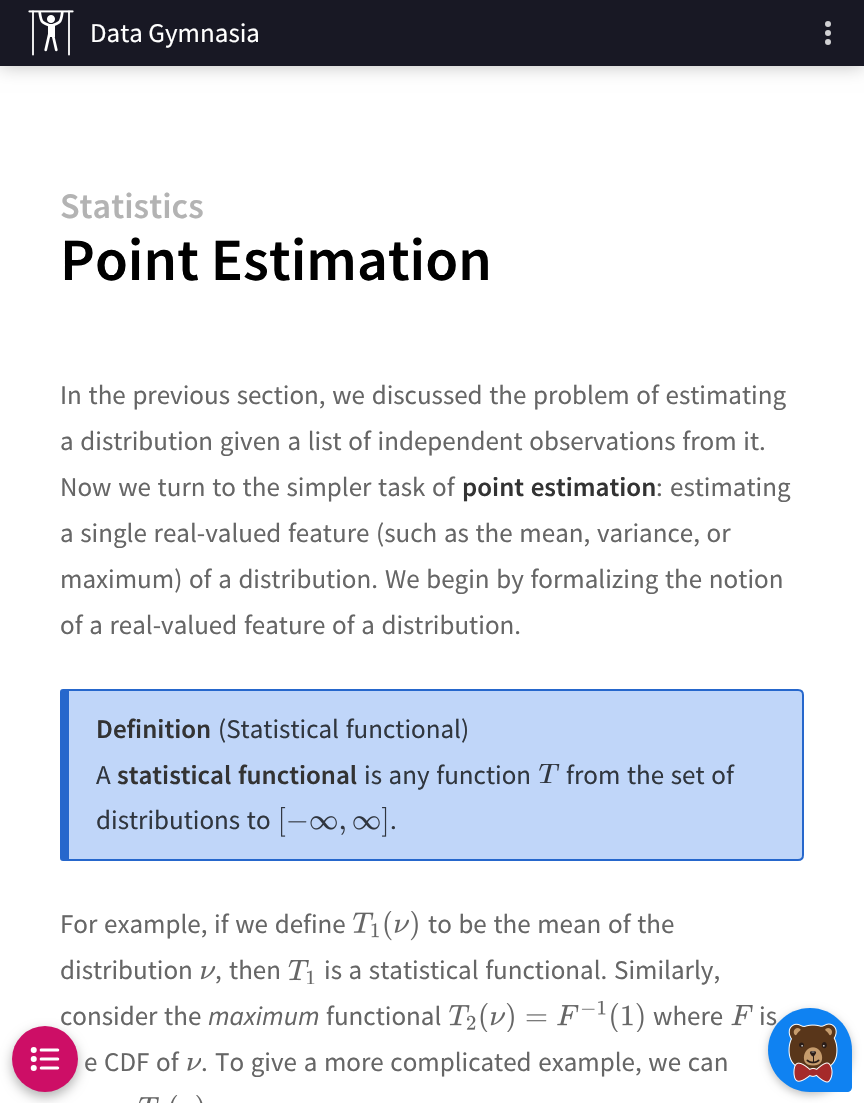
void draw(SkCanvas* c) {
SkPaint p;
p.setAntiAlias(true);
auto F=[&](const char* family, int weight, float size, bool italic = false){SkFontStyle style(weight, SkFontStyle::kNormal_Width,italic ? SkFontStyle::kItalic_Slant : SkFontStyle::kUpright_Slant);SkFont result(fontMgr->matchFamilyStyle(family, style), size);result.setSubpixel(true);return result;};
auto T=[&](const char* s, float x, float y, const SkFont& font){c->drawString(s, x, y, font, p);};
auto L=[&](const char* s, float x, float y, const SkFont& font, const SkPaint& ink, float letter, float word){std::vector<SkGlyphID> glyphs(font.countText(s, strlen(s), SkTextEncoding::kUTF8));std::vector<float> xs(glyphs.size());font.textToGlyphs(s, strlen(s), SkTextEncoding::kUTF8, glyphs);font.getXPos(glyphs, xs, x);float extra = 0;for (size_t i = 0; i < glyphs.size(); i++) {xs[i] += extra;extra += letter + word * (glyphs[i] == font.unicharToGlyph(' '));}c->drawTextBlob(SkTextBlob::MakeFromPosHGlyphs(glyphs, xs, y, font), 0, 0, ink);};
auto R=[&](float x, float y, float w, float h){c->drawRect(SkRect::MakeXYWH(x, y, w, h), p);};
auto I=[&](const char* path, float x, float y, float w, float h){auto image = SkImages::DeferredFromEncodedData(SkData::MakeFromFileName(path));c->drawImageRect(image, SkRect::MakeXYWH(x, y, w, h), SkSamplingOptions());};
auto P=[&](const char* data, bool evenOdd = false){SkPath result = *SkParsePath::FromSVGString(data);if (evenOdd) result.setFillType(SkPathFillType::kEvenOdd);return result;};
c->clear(0xffffffff);
p.setColor(0x40000000);
p.setMaskFilter(SkMaskFilter::MakeBlur(kNormal_SkBlurStyle, 9));
c->drawRect(SkRect::MakeXYWH(0,0,864,66),p);
p.setMaskFilter(nullptr);
p.setColor(0xff181824);
R(0,0,864,66);
I("1.png",28,10,46,46);
auto f1 = F("Source Sans Pro",400,27);
p.setColor(0xffffffff);
T("Data Gymnasia",90,42,f1);
I("2.png",825,21,6,24);
p.setColor(0x4d000000);
p.setMaskFilter(SkMaskFilter::MakeBlur(kNormal_SkBlurStyle, 6));
c->drawRoundRect(SkRect::MakeXYWH(12,1031,66,66),33,33,p);
p.setMaskFilter(nullptr);
p.setColor(0xffcd0e66);
c->drawCircle(45,1059,33,p);
I("3.png",30,1047,30,24);
auto f2 = F("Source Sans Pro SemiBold",600,36);
p.setColor(0xffb3b3b3);
T("Statistics",60,218,f2);
auto f3 = F("Source Sans Pro SemiBold",600,60);
p.setColor(0xff000000);
T("Point Estimation",60,280,f3);
p.setColor(0xff666666);
L("In the previous section, we discussed the problem of estimating",60,404,f1,p,0,1.25);
L("a distribution given a list of independent observations from it.",60,450,f1,p,0,1.25);
L("Now we turn to the simpler task of",60,496,f1,p,0,1.25);
auto f4 = F("Source Sans Pro SemiBold",600,27);
p.setColor(0xff333333);
L("point estimation",462,496,f4,p,0,1.25);
p.setColor(0xff666666);
T(":",656,496,f1);
T("estimating",670,496,f1);
L("a single real-valued feature (such as the mean, variance, or",60,542,f1,p,0,1.25);
L("maximum) of a distribution.",60,588,f1,p,0,1.25);
L("We begin by formalizing the notion",385,588,f1,p,0,1.25);
L("of a real-valued feature of a distribution.",60,634,f1,p,0,1.25);
p.setColor(0xffc0d6f9);
c->drawPath(P("M69 690h729c2 0 4 2 4 4v161c0 2-2 5-4 5h-729z"),p);
p.setStroke(true);
p.setStrokeWidth(2);
p.setColor(0xff2667cc);
c->drawPath(P("M63 690h735c3 0 5 2 5 5v160c0 3-2 5-5 5h-735c-1 0-2-1-2-2v-166c0-1 1-2 2-2z"),p);
p.setStroke(false);
R(62,690,7,170);
p.setColor(0xff333333);
T("Definition",96,738,f4);
p.setColor(0xff30363e);
L("(Statistical functional)",218,738,f1,p,0,1.25);
T("A",96,784,f1);
p.setColor(0xff333333);
L("statistical functional",117,784,f4,p,0,1.25);
p.setColor(0xff30363e);
L("is any function",364,784,f1,p,0,1.25);
I("4.png",539,764,21,19);
L("from the set of",566,784,f1,p,0,1.25);
L("distributions to",96,829,f1,p,0,1.25);
I("5.png",281,807,106,30);
T(".",390,829,f1);
p.setColor(0xff666666);
L("For example, if we define",60,933,f1,p,0,1.25);
I("6.png",353,911,65,30);
L("to be the mean of the",428,933,f1,p,0,1.25);
T("distribution",60,979,f1);
I("7.png",200,966,16,14);
T(",",215,979,f1);
T("then",229,979,f1);
I("8.png",288,960,27,24);
L("is a statistical functional.",324,979,f1,p,0,1.25);
T("Similarly,",614,979,f1);
L("consider the",60,1025,f1,p,0,1.25);
auto f5 = F("Source Sans Pro",400,27,true);
T("maximum",208,1025,f5);
T("functional",326,1025,f1);
I("9.png",449,1001,195,31);
T("where",653,1025,f1);
I("10.png",731,1005,22,21);
T("is",759,1025,f1);
L("e CDF of",84,1071,f1,p,0,1.25);
I("11.png",187,1058,14,13);
T(".",201,1071,f1);
L("To give a more complicated example, we can",215,1071,f1,p,0,1.25);
I("12.png",139,1095,64,8);
p.setColor(0x40000000);
p.setMaskFilter(SkMaskFilter::MakeBlur(kNormal_SkBlurStyle, 4.5));
c->drawRoundRect(SkRect::MakeXYWH(768,1011,84,84),42,42,p);
p.setMaskFilter(nullptr);
p.setColor(0xff0f82f2);
c->drawPath(P("M810 1008c23 0 42 19 42 42v37c0 3-2 5-5 5h-37c-23 0-42-19-42-42c0-23 19-42 42-42z"),p);
I("13.png",788,1023,50,60);
}
